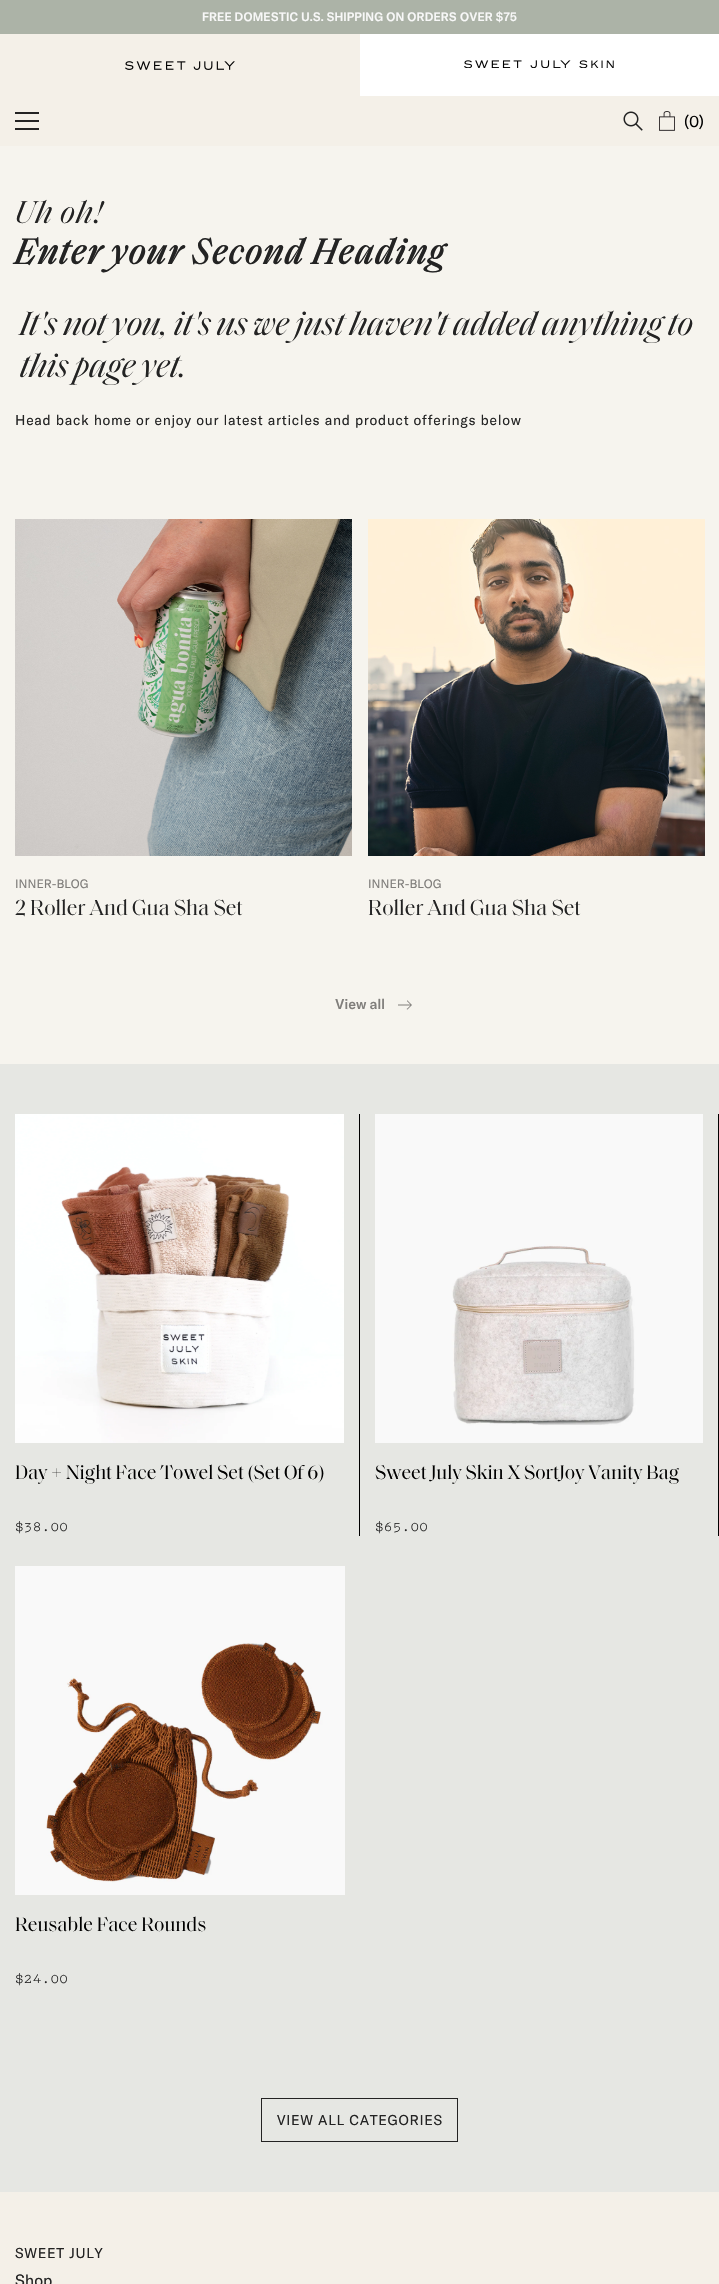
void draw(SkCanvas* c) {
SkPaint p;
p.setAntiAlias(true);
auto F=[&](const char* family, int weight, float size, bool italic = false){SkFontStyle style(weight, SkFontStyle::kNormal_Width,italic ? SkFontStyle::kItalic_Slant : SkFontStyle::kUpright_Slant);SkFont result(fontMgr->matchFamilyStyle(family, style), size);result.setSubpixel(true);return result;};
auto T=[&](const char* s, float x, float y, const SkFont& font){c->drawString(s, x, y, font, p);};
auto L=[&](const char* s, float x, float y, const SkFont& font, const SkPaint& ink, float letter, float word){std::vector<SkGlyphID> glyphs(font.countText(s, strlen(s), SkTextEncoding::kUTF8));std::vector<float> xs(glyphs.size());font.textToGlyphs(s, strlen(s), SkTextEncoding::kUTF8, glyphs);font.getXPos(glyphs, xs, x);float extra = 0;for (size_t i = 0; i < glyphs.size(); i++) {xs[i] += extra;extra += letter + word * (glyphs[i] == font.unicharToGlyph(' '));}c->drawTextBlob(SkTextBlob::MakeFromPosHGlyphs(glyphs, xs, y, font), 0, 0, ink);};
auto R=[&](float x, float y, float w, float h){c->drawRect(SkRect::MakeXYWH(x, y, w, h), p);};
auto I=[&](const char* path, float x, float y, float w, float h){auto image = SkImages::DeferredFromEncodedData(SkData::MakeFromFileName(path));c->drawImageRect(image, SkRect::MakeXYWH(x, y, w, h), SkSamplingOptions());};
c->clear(0xffacb3a7);
auto f1 = F("GT America",500,12);
p.setColor(0xfff8f8f8);
T("FREE DOMESTIC U.S. SHIPPING ON ORDERS OVER $75",202,21,f1);
p.setColor(0xfff4f0e8);
R(0,34,360,62);
I("1.png",125,61,110,9);
p.setColor(0xffffffff);
R(360,34,359,62);
I("2.png",464,60,150,8);
p.setColor(0xfff4f0e8);
R(0,96,719,50);
p.setColor(0xff232323);
R(15,120,24,2);
R(15,112,24,2);
R(15,128,24,2);
I("3.png",623,111,20,20);
I("4.png",659,111,16,20);
auto f2 = F("GT America",400,16);
p.setColor(0xff000000);
T("(0)",684,127,f2);
p.setColor(0xfff6f4ee);
R(0,146,719,918);
auto f3 = F("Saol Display",400,32,true);
p.setColor(0xff232323);
L("Uh oh!",15,223,f3,p,1.5,0);
auto f4 = F("Saol Display",700,36,true);
L("Enter your Second Heading",15,264,f4,p,1.8,0);
auto f5 = F("Saol Display",400,34,true);
T("It's not you, it's us we just haven't added anything to",20,335,f5);
T("this page yet.",20,377,f5);
auto f6 = F("GT America",400,14);
L("Head back home or enjoy our latest articles and product offerings below",15,425,f6,p,.7,0);
I("5.png",15,519,337,337);
auto f7 = F("GT America",400,12);
p.setColor(0xff807e7b);
T("INNER-BLOG",15,888,f7);
auto f8 = F("Saol Display",400,22);
p.setColor(0xff232323);
T("2 Roller And Gua Sha Set",15,915,f8);
I("6.png",368,519,337,337);
p.setColor(0xff807e7b);
T("INNER-BLOG",368,888,f7);
p.setColor(0xff232323);
T("Roller And Gua Sha Set",368,915,f8);
auto f9 = F("GT America",500,14);
p.setColor(0xff807e7b);
T("View all",335,1009,f9);
I("7.png",398,1000,14,10);
p.setColor(0xffe6e7e3);
R(0,1064,719,1128);
p.setColor(0xff000000);
R(359,1114,1,422);
I("8.png",15,1114,329,329);
auto f10 = F("Saol Display",400,20);
T("Day + Night Face Towel Set (Set Of 6)",15,1479,f10);
auto f11 = F("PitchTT",400,14);
p.setColor(0xff232323);
L("$38.00",15,1531,f11,p,.25,0);
p.setColor(0xff000000);
R(718,1114,1,422);
I("9.png",375,1114,328,329);
T("Sweet July Skin X SortJoy Vanity Bag",375,1479,f10);
p.setColor(0xff232323);
L("$65.00",375,1531,f11,p,.25,0);
I("10.png",15,1566,330,329);
p.setColor(0xff000000);
T("Reusable Face Rounds",15,1931,f10);
p.setColor(0xff232323);
L("$24.00",15,1983,f11,p,.25,0);
p.setStroke(true);
p.setStrokeWidth(1);
c->drawRect(SkRect::MakeXYWH(261.5,2098.5,196,43),p);
p.setStroke(false);
L("VIEW ALL CATEGORIES",277,2125,f6,p,.7,0);
p.setColor(0xfff4f0e8);
R(0,2192,719,92);
p.setColor(0xff232323);
L("SWEET JULY",15,2258,f6,p,.7,0);
T("Shop",15,2286,f2);
}
